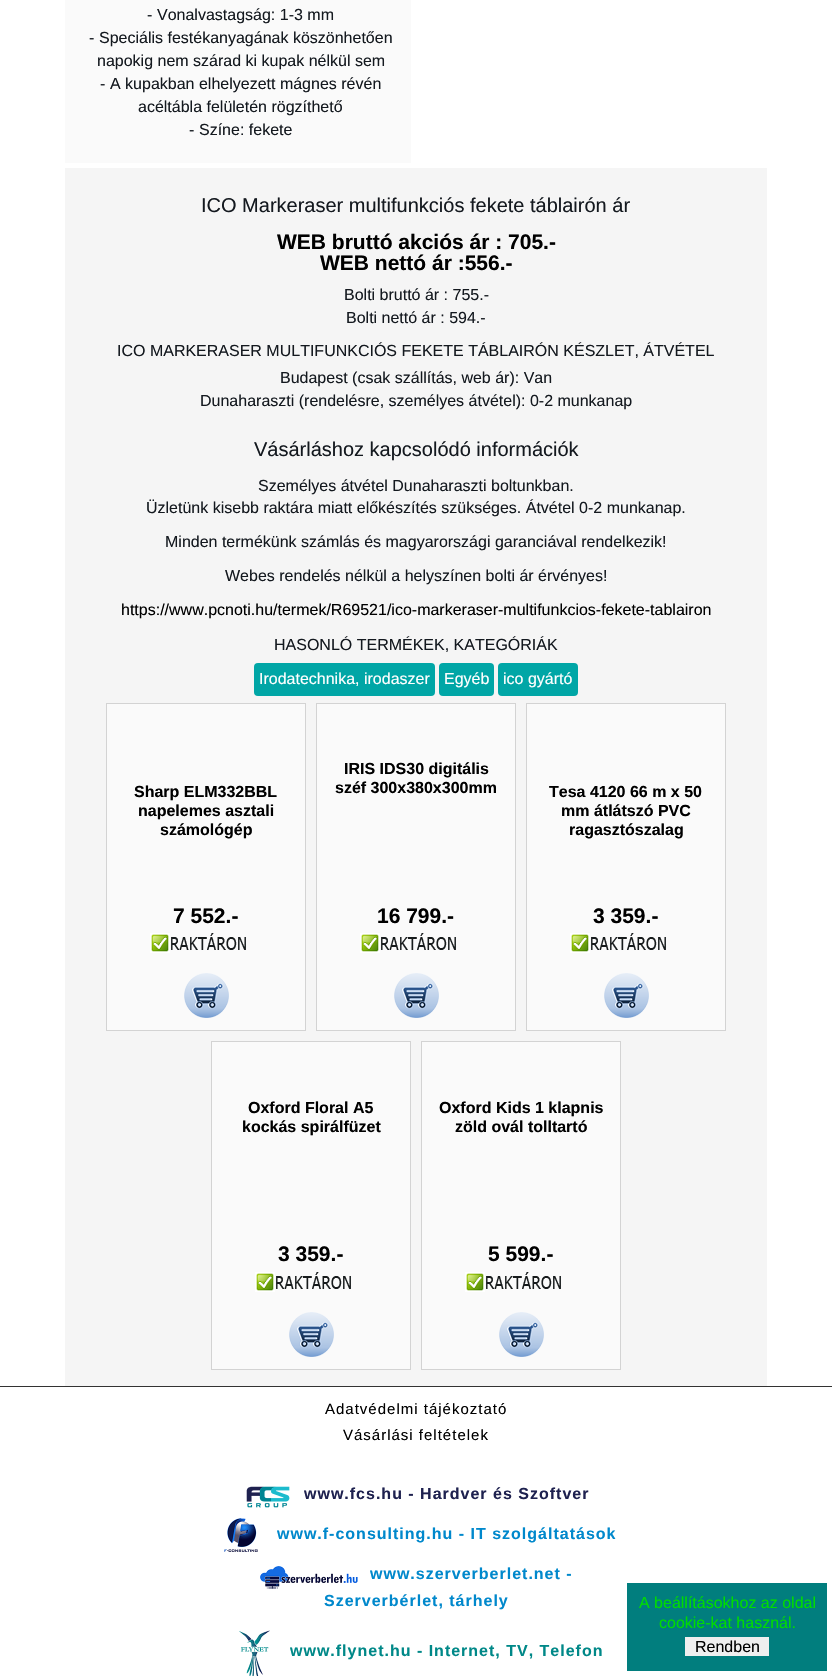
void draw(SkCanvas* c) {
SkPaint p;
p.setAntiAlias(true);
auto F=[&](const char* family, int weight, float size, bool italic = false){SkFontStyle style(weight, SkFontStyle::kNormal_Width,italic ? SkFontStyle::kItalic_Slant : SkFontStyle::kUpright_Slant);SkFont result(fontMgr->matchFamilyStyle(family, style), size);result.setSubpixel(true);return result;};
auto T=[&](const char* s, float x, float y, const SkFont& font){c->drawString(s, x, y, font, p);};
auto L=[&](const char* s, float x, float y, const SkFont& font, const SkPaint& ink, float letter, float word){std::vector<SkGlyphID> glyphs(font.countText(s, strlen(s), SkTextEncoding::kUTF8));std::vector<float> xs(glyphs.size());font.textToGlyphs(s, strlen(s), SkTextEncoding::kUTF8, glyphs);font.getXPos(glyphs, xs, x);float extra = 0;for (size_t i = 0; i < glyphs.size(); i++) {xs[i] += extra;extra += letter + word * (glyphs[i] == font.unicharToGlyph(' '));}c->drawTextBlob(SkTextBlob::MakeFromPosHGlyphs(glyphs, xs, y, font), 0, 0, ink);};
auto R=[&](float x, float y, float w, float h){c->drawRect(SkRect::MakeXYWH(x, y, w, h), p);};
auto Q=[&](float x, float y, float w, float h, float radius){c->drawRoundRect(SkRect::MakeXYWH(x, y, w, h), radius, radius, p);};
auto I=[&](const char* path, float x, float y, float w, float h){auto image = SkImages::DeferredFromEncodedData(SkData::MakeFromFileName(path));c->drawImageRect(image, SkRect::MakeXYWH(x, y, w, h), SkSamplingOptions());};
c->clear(0xffffffff);
p.setColor(0xfffafafa);
R(65,0,346,163);
auto f1 = F("Liberation Sans",400,16);
p.setColor(0xff14191f);
T("-",147,20,f1);
T("Vonalvastagság: 1-3 mm",157,20,f1);
T("-",89,43,f1);
T("Speciális festékanyagának köszönhetően",99,43,f1);
T("napokig nem szárad ki kupak nélkül sem",97,66,f1);
T("-",100,89,f1);
T("A kupakban elhelyezett mágnes révén",110,89,f1);
T("acéltábla felületén rögzíthető",138,112,f1);
T("-",189,135,f1);
T("Színe: fekete",199,135,f1);
p.setColor(0xfff5f5f5);
R(65,168,702,1218);
auto f2 = F("Liberation Sans",400,20);
p.setColor(0xff14191f);
T("ICO Markeraser multifunkciós fekete táblairón ár",201,212,f2);
auto f3 = F("Liberation Sans",700,21);
p.setColor(0xff000000);
T("WEB bruttó akciós ár : 705.-",277,249,f3);
T("WEB nettó ár :556.-",320,270,f3);
p.setColor(0xff14191f);
T("Bolti bruttó ár : 755.-",344,300,f1);
T("Bolti nettó ár : 594.-",346,323,f1);
T("ICO MARKERASER MULTIFUNKCIÓS FEKETE TÁBLAIRÓN KÉSZLET, ÁTVÉTEL",117,356,f1);
T("Budapest (csak szállítás, web ár): Van",280,383,f1);
T("Dunaharaszti (rendelésre, személyes átvétel): 0-2 munkanap",200,406,f1);
T("Vásárláshoz kapcsolódó információk",254,456,f2);
T("Személyes átvétel Dunaharaszti boltunkban.",258,491,f1);
T("Üzletünk kisebb raktára miatt előkészítés szükséges. Átvétel 0-2 munkanap.",146,513,f1);
T("Minden termékünk számlás és magyarországi garanciával rendelkezik!",165,547,f1);
T("Webes rendelés nélkül a helyszínen bolti ár érvényes!",225,581,f1);
p.setColor(0xff000000);
T("https://www.pcnoti.hu/termek/R69521/ico-markeraser-multifunkcios-fekete-tablairon",121,615,f1);
p.setColor(0xff14191f);
T("HASONLÓ TERMÉKEK, KATEGÓRIÁK",274,650,f1);
p.setColor(0xff00a6a6);
Q(254,663,181,33,4);
p.setColor(0xffffffff);
T("Irodatechnika, irodaszer",259,684,f1);
p.setColor(0xff00a6a6);
Q(439,663,55,33,4);
p.setColor(0xffffffff);
T("Egyéb",444,684,f1);
p.setColor(0xff00a6a6);
Q(498,663,80,33,4);
p.setColor(0xffffffff);
T("ico gyártó",503,684,f1);
p.setColor(0xfffafafa);
c->drawRect(SkRect::MakeXYWH(106.5,703.5,199,327),p);
p.setStroke(true);
p.setStrokeWidth(1);
p.setColor(0xffd3d3d3);
c->drawRect(SkRect::MakeXYWH(106.5,703.5,199,327),p);
auto f4 = F("Liberation Sans",700,16);
p.setStroke(false);
p.setColor(0xff000000);
T("Sharp ELM332BBL",134,797,f4);
T("napelemes asztali",138,816,f4);
T("számológép",160,835,f4);
T("7 552.-",173,923,f3);
I("1.png",150,933,96,20);
I("2.png",184,973,45,45);
p.setColor(0xfffafafa);
c->drawRect(SkRect::MakeXYWH(316.5,703.5,199,327),p);
p.setStroke(true);
p.setColor(0xffd3d3d3);
c->drawRect(SkRect::MakeXYWH(316.5,703.5,199,327),p);
p.setStroke(false);
p.setColor(0xff000000);
T("IRIS IDS30 digitális",344,774,f4);
T("széf 300x380x300mm",335,793,f4);
T("16 799.-",377,923,f3);
I("1.png",360,933,96,20);
I("2.png",394,973,45,45);
p.setColor(0xfffafafa);
c->drawRect(SkRect::MakeXYWH(526.5,703.5,199,327),p);
p.setStroke(true);
p.setColor(0xffd3d3d3);
c->drawRect(SkRect::MakeXYWH(526.5,703.5,199,327),p);
p.setStroke(false);
p.setColor(0xff000000);
T("Tesa 4120 66 m x 50",549,797,f4);
T("mm átlátszó PVC",561,816,f4);
T("ragasztószalag",569,835,f4);
T("3 359.-",593,923,f3);
I("1.png",570,933,96,20);
I("2.png",604,973,45,45);
p.setColor(0xfffafafa);
c->drawRect(SkRect::MakeXYWH(211.5,1041.5,199,328),p);
p.setStroke(true);
p.setColor(0xffd3d3d3);
c->drawRect(SkRect::MakeXYWH(211.5,1041.5,199,328),p);
p.setStroke(false);
p.setColor(0xff000000);
T("Oxford Floral A5",248,1113,f4);
T("kockás spirálfüzet",242,1132,f4);
T("3 359.-",278,1261,f3);
I("1.png",255,1272,96,20);
I("2.png",289,1312,45,45);
p.setColor(0xfffafafa);
c->drawRect(SkRect::MakeXYWH(421.5,1041.5,199,328),p);
p.setStroke(true);
p.setColor(0xffd3d3d3);
c->drawRect(SkRect::MakeXYWH(421.5,1041.5,199,328),p);
p.setStroke(false);
p.setColor(0xff000000);
T("Oxford Kids 1 klapnis",439,1113,f4);
T("zöld ovál tolltartó",455,1132,f4);
T("5 599.-",488,1261,f3);
I("1.png",465,1272,96,20);
I("2.png",499,1312,45,45);
p.setColor(0xff333333);
R(0,1386,832,1);
auto f5 = F("Liberation Sans",400,15);
p.setColor(0xff000000);
L("Adatvédelmi tájékoztató",325,1414,f5,p,1,0);
L("Vásárlási feltételek",343,1440,f5,p,1,0);
I("3.png",246,1486,44,22);
p.setColor(0xff1e214f);
L("www.fcs.hu - Hardver és Szoftver",304,1499,f4,p,1,0);
I("4.png",224,1518,34,34);
p.setColor(0xff0088cc);
L("www.f-consulting.hu - IT szolgáltatások",277,1539,f4,p,1,0);
I("5.png",260,1566,98,23);
L("www.szerverberlet.net -",370,1579,f4,p,1,0);
L("Szerverbérlet, tárhely",324,1606,f4,p,1,0);
I("6.png",239,1630,31,46);
p.setColor(0xff008888);
L("www.flynet.hu - Internet, TV, Telefon",290,1656,f4,p,1,0);
p.setColor(0xff017e7e);
R(627,1583,200,88);
p.setColor(0xff00dd00);
T("A beállításokhoz az oldal",639,1608,f1);
T("cookie-kat használ.",659,1628,f1);
p.setColor(0xffefefef);
R(685,1637,84,19);
p.setColor(0xff000000);
T("Rendben",695,1652,f1);
}
